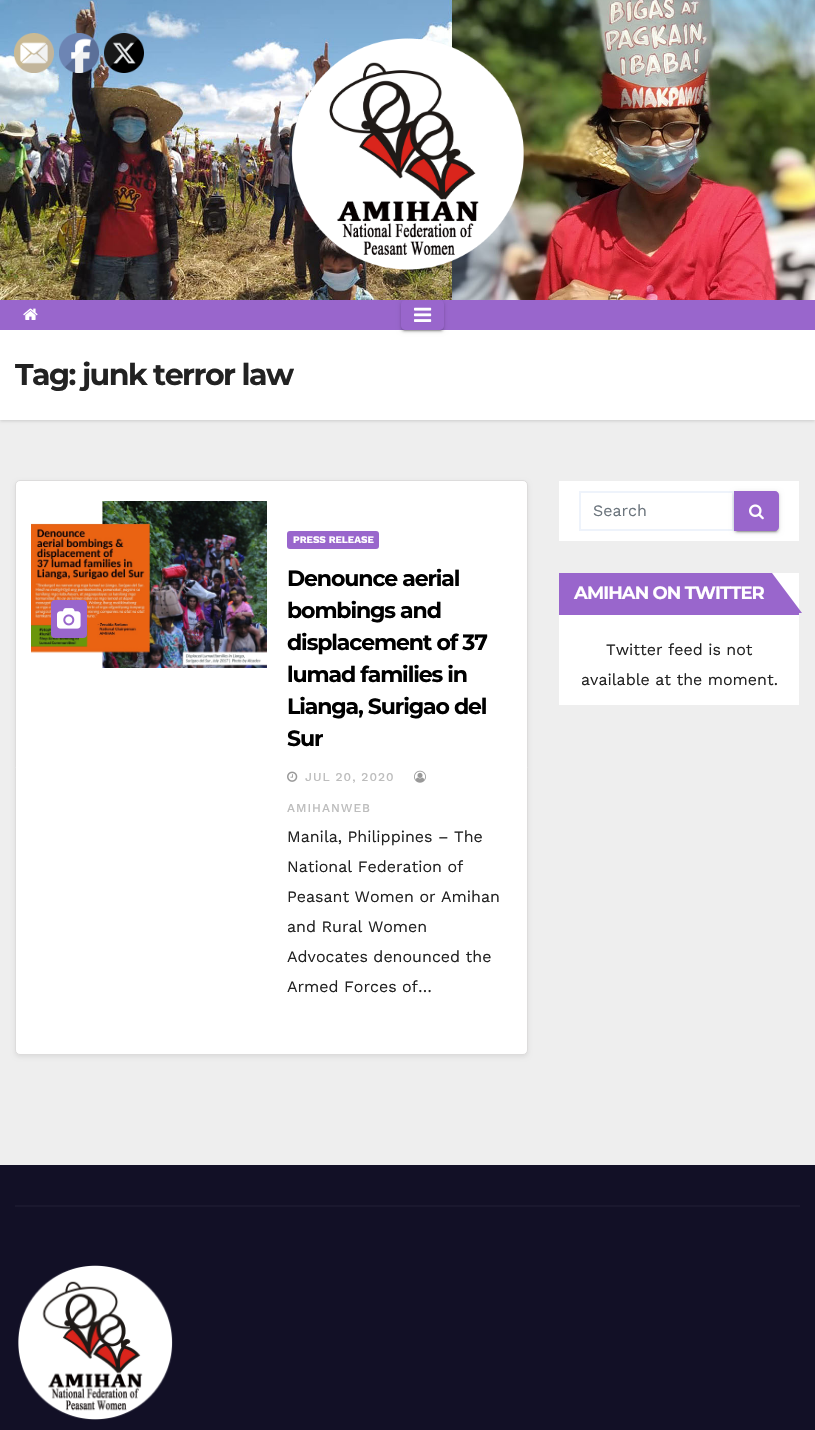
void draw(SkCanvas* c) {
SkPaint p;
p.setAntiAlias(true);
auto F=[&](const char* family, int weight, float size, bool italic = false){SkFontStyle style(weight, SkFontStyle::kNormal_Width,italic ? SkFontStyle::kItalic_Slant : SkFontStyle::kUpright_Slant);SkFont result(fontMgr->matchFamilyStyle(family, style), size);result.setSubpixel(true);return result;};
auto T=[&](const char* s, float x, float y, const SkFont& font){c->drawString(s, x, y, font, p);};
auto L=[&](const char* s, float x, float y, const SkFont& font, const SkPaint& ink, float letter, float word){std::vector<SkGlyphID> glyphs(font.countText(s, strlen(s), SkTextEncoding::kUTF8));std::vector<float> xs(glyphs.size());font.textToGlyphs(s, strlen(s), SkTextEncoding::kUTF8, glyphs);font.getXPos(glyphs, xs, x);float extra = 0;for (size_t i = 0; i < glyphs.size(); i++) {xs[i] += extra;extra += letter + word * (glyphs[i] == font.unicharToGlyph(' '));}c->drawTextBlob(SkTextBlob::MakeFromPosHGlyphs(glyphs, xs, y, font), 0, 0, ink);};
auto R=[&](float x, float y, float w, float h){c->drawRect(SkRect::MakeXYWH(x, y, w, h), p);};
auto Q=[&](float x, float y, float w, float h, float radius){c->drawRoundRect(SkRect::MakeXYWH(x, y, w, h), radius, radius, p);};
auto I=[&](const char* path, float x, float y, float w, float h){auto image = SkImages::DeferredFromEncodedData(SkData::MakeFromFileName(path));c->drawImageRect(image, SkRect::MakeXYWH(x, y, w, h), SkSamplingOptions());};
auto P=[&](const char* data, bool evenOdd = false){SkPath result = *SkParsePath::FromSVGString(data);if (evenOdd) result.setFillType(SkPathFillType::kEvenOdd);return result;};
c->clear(0xffeeeeee);
I("4.png",0,0,815,300);
I("1.png",14,33,40,40);
I("2.png",59,33,40,40);
I("3.png",104,33,40,40);
I("5.png",291,38,233,232);
p.setColor(0x26000000);
p.setMaskFilter(SkMaskFilter::MakeBlur(kNormal_SkBlurStyle, 1.5));
c->drawRect(SkRect::MakeXYWH(0,331,815,90),p);
p.setMaskFilter(nullptr);
p.setColor(0xff9966cc);
R(0,300,815,30);
I("6.png",23,308,15,12);
p.setColor(0xffffffff);
R(0,330,815,90);
c->save();
c->clipPath(P("M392 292h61v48h-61zm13 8h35c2 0 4 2 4 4v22c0 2-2 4-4 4h-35c-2 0-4-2-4-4v-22c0-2 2-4 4-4z",true),true);
p.setColor(0x1f000000);
p.setMaskFilter(SkMaskFilter::MakeBlur(kNormal_SkBlurStyle, 2.5));
c->drawRoundRect(SkRect::MakeXYWH(401,301,43,30),4,4,p);
p.setMaskFilter(nullptr);
c->restore();
c->save();
c->clipPath(P("M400 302h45v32h-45zm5-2h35c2 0 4 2 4 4v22c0 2-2 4-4 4h-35c-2 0-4-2-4-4v-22c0-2 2-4 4-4z",true),true);
p.setColor(0x33000000);
p.setMaskFilter(SkMaskFilter::MakeBlur(kNormal_SkBlurStyle, .5));
c->drawRoundRect(SkRect::MakeXYWH(403,305,39,26),2,2,p);
p.setMaskFilter(nullptr);
c->restore();
c->save();
c->clipPath(P("M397 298h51v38h-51zm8 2h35c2 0 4 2 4 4v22c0 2-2 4-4 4h-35c-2 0-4-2-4-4v-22c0-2 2-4 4-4z",true),true);
p.setColor(0x24000000);
p.setMaskFilter(SkMaskFilter::MakeBlur(kNormal_SkBlurStyle, 1));
c->drawRoundRect(SkRect::MakeXYWH(401,302,43,30),4,4,p);
p.setMaskFilter(nullptr);
c->restore();
I("7.png",414,307,18,15);
auto f1 = F("Montserrat",700,30);
p.setColor(0xff222222);
L("Tag: junk terror law",15,385,f1,p,-1.5,0);
p.setColor(0x14000000);
p.setMaskFilter(SkMaskFilter::MakeBlur(kNormal_SkBlurStyle, 2));
c->drawRoundRect(SkRect::MakeXYWH(15,482,513,575),5,5,p);
p.setMaskFilter(nullptr);
p.setColor(0xffffffff);
c->drawRoundRect(SkRect::MakeXYWH(15.5,480.5,512,574),4.5,4.5,p);
p.setStroke(true);
p.setStrokeWidth(1);
p.setColor(0xffdddcdc);
c->drawRoundRect(SkRect::MakeXYWH(15.5,480.5,512,574),4.5,4.5,p);
I("8.png",31,501,236,167);
p.setStroke(false);
p.setColor(0xff9966cc);
Q(51,600,36,38,4);
I("9.png",57,608,24,21);
Q(287,531,92,18,3);
auto f2 = F("Work Sans",700,10);
p.setColor(0xffffffff);
T("PRESS RELEASE",293,543,f2);
auto f3 = F("Montserrat",700,22);
p.setColor(0xff000000);
L("Denounce aerial",287,586,f3,p,-1.1,0);
L("bombings and",287,618,f3,p,-1.1,0);
L("displacement of 37",287,650,f3,p,-1.1,0);
L("lumad families in",287,682,f3,p,-1.1,0);
L("Lianga, Surigao del",287,714,f3,p,-1.1,0);
L("Sur",287,746,f3,p,-1.1,0);
I("10.png",287,771,11,11);
auto f4 = F("Work Sans",500,12);
p.setColor(0xffbdbdbd);
L("JUL 20, 2020",305,781,f4,p,1,0);
I("11.png",414,770,12,13);
L("AMIHANWEB",287,812,f4,p,1,0);
auto f5 = F("Work Sans",400,16);
p.setColor(0xff222222);
T("Manila, Philippines – The",287,842,f5);
T("National Federation of",287,872,f5);
T("Peasant Women or Amihan",287,902,f5);
T("and Rural Women",287,932,f5);
T("Advocates denounced the",287,962,f5);
T("Armed Forces of…",287,992,f5);
p.setColor(0xffffffff);
R(559,481,240,60);
p.setStroke(true);
p.setStrokeWidth(2);
p.setColor(0xffeef3fb);
c->drawRect(SkRect::MakeXYWH(580,492,153,38),p);
p.setStroke(false);
p.setColor(0xff6c757d);
T("Search",593,516,f5);
p.setColor(0x1f000000);
p.setMaskFilter(SkMaskFilter::MakeBlur(kNormal_SkBlurStyle, 2.5));
c->drawRoundRect(SkRect::MakeXYWH(734,492,45,40),4,4,p);
p.setMaskFilter(nullptr);
p.setColor(0x33000000);
p.setMaskFilter(SkMaskFilter::MakeBlur(kNormal_SkBlurStyle, .5));
c->drawRoundRect(SkRect::MakeXYWH(736,496,41,36),2,2,p);
p.setMaskFilter(nullptr);
p.setColor(0x24000000);
p.setMaskFilter(SkMaskFilter::MakeBlur(kNormal_SkBlurStyle, 1));
c->drawRoundRect(SkRect::MakeXYWH(734,493,45,40),4,4,p);
p.setMaskFilter(nullptr);
p.setColor(0xff9966cc);
c->drawPath(P("M734 491h41c2 0 4 2 4 4v32c0 2-2 4-4 4h-41z"),p);
I("12.png",749,504,15,16);
p.setColor(0xffffffff);
R(559,573,240,132);
p.setColor(0xff9966cc);
R(559,613,240,2);
R(559,573,213,40);
auto f6 = F("Montserrat",700,18);
p.setColor(0xffffffff);
L("AMIHAN ON TWITTER",574,599,f6,p,-.9,0);
p.setColor(0xff9966cc);
c->drawPath(P("M772 613v-40l30 40z"),p);
p.setColor(0xff222222);
T("Twitter feed is not",606,655,f5);
T("available at the moment.",581,685,f5);
p.setColor(0xff121026);
R(0,1165,815,265);
p.setColor(0xff1a182e);
R(15,1205,785,2);
I("13.png",18,1265,155,155);
}
